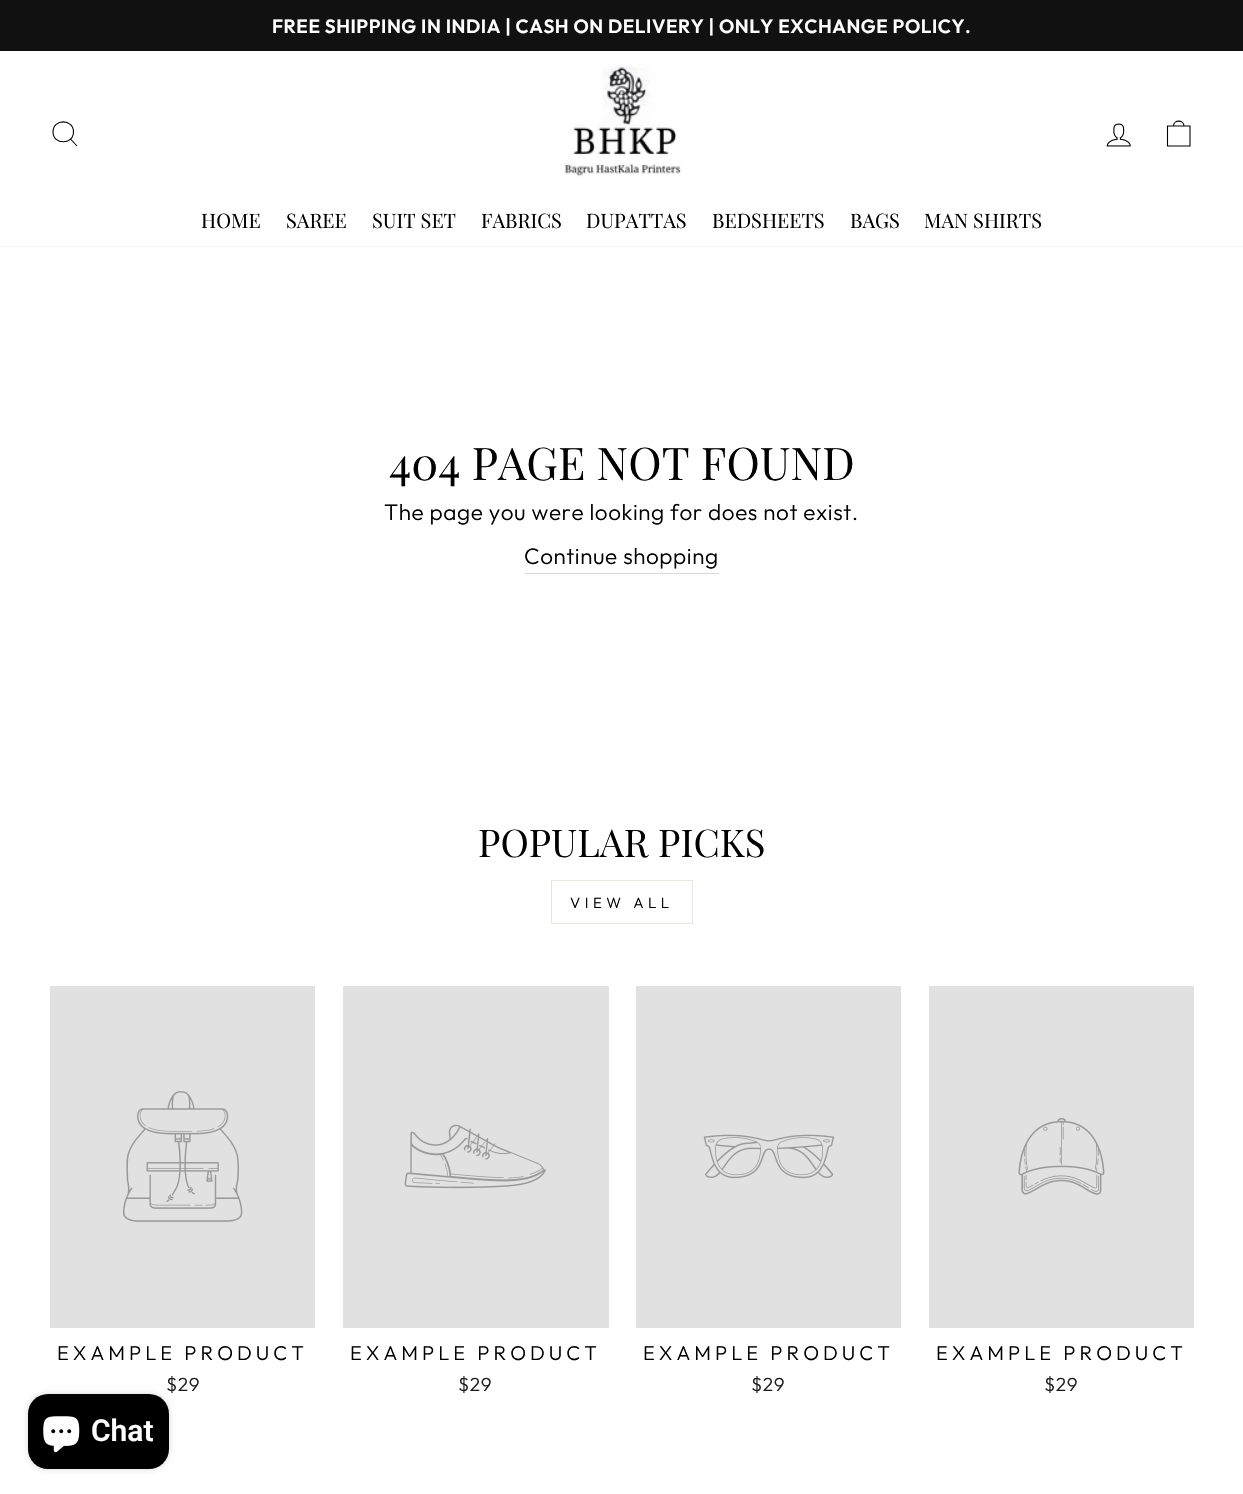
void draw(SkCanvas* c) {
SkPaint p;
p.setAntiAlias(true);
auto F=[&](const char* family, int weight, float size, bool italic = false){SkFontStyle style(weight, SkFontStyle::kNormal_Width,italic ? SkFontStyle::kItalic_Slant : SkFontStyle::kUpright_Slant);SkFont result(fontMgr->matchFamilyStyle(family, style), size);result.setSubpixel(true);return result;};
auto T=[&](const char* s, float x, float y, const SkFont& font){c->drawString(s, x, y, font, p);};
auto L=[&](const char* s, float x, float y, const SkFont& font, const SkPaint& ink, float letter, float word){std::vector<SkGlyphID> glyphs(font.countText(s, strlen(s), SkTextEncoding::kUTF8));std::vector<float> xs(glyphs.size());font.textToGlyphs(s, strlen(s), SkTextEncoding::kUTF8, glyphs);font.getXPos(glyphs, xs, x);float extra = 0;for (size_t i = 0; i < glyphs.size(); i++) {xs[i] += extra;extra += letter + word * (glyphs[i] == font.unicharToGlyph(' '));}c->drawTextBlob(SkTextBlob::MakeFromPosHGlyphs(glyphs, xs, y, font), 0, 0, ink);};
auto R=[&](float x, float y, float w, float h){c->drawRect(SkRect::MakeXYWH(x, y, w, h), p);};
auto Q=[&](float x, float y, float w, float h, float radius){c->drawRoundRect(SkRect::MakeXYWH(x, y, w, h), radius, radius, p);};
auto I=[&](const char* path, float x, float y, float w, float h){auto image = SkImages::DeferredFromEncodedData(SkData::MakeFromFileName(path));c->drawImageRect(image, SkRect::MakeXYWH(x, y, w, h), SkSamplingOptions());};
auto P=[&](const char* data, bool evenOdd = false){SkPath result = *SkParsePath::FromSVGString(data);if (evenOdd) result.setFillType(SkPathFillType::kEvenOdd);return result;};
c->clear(0xffffffff);
p.setColor(0xff111111);
R(0,0,1243,51);
auto f1 = F("Outfit",600,19.1);
p.setColor(0xffffffff);
L("FREE SHIPPING IN INDIA | CASH ON DELIVERY | ONLY EXCHANGE POLICY.",272,33,f1,p,.55,0);
p.setColor(0x33000000);
p.setMaskFilter(SkMaskFilter::MakeBlur(kNormal_SkBlurStyle, .5));
c->drawRect(SkRect::MakeXYWH(0,51,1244,195),p);
p.setMaskFilter(nullptr);
p.setColor(0xffffffff);
R(0,51,1243,195);
p.setStroke(true);
p.setStrokeWidth(1.1);
p.setColor(0xff000000);
c->drawPath(P("M73.5 132c0 13-20.5 13-20.5 0c0-13.5 20.5-13.5 20.5 0zm3.5 14l-6.5-7"),p);
I("1.png",564,64,117,113);
I("2.png",1106,123,25,24);
c->drawPath(P("M1167.5 126h22.5v20h-22.5zm6 0c0-6.5 10.5-6.5 10.5 0"),p);
auto f2 = F("Playfair Display",400,20);
p.setStroke(false);
T("HOME",201,228,f2);
T("SAREE",286,228,f2);
T("SUIT SET",372,228,f2);
T("FABRICS",481,228,f2);
T("DUPATTAS",586,228,f2);
T("BEDSHEETS",712,228,f2);
T("BAGS",850,228,f2);
T("MAN SHIRTS",924,228,f2);
auto f3 = F("Playfair Display",400,45);
T("404 PAGE NOT FOUND",389,480,f3);
auto f4 = F("Outfit",300,22.5);
L("The page you were looking for does not exist.",384,520,f4,p,.55,0);
p.setColor(0xffd9d9d9);
R(525,573,194,1);
p.setColor(0xff000000);
L("Continue shopping",524,564,f4,p,.55,0);
auto f5 = F("Playfair Display",400,38.25);
T("POPULAR PICKS",478,857,f5);
p.setStroke(true);
p.setStrokeWidth(1);
p.setColor(0xffe8e8e1);
c->drawRect(SkRect::MakeXYWH(551.5,880.5,141,43),p);
auto f6 = F("Outfit",300,15);
p.setStroke(false);
p.setColor(0xff000000);
L("VIEW ALL",570,908,f6,p,4.5,0);
p.setColor(0xffe1e1e1);
R(50,986,265,342);
I("3.png",123,1091,120,131);
auto f7 = F("Outfit",300,20);
p.setColor(0xff000000);
L("EXAMPLE PRODUCT",57,1360,f7,p,4,0);
auto f8 = F("Outfit",300,19.1);
p.setColor(0xff1c1d1d);
L("$29",166,1391,f8,p,.55,0);
p.setColor(0xffe1e1e1);
R(343,986,266,342);
I("4.png",404,1124,142,65);
p.setColor(0xff000000);
L("EXAMPLE PRODUCT",350,1360,f7,p,4,0);
p.setColor(0xff1c1d1d);
L("$29",458,1391,f8,p,.55,0);
p.setColor(0xffe1e1e1);
R(636,986,265,342);
I("5.png",703,1134,131,45);
p.setColor(0xff000000);
L("EXAMPLE PRODUCT",643,1360,f7,p,4,0);
p.setColor(0xff1c1d1d);
L("$29",751,1391,f8,p,.55,0);
p.setColor(0xffe1e1e1);
R(929,986,265,342);
I("6.png",1018,1118,87,77);
p.setColor(0xff000000);
L("EXAMPLE PRODUCT",936,1360,f7,p,4,0);
p.setColor(0xff1c1d1d);
L("$29",1044,1391,f8,p,.55,0);
p.setColor(0x26000000);
p.setMaskFilter(SkMaskFilter::MakeBlur(kNormal_SkBlurStyle, 3));
c->drawRoundRect(SkRect::MakeXYWH(28,1394,141,75),20,20,p);
p.setMaskFilter(nullptr);
p.setColor(0xff000000);
Q(28,1394,141,75,20);
I("7.png",43,1416,37,37);
auto f9 = F("Roboto",600,30);
p.setColor(0xffffffff);
T("Chat",91,1441,f9);
}
